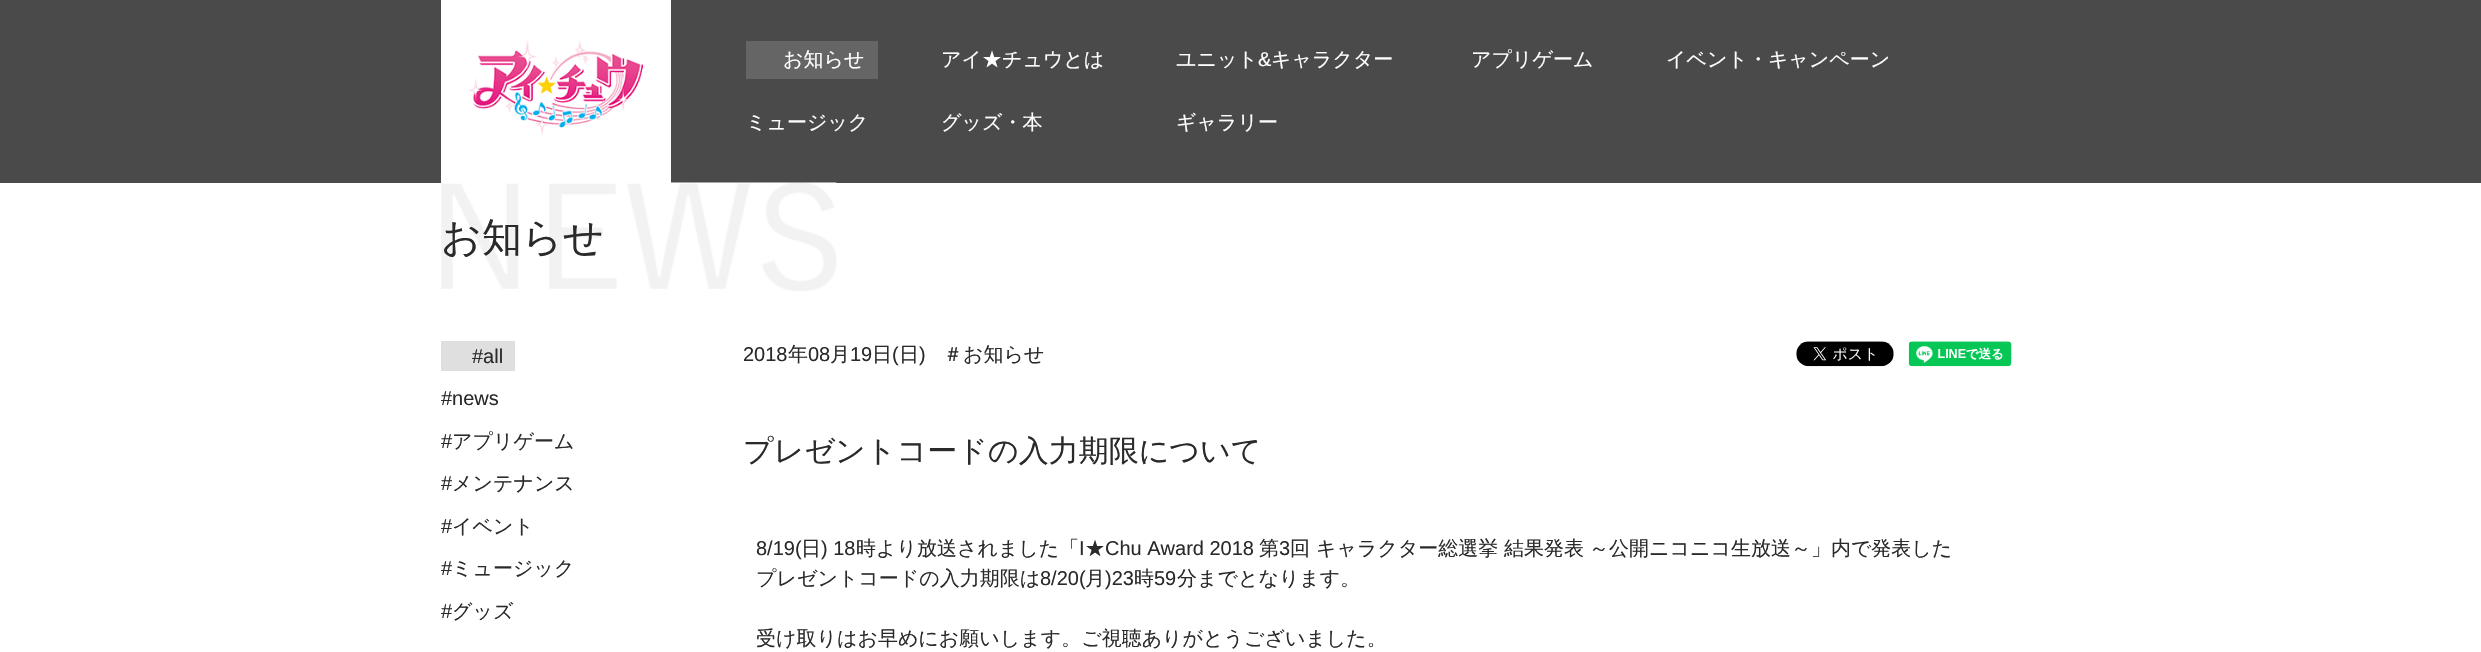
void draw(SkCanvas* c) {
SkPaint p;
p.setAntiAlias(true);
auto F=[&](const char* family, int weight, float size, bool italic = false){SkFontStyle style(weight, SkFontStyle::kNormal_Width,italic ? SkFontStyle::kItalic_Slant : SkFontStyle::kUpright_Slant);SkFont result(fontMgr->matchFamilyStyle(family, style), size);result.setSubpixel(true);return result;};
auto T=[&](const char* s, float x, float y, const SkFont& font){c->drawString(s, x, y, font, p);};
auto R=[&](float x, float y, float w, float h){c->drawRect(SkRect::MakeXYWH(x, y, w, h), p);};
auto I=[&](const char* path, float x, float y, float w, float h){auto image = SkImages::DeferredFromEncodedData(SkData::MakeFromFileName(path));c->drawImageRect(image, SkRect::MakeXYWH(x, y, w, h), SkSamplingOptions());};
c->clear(0xffffffff);
p.setColor(0xff4a4a4a);
R(0,0,2481,183);
p.setColor(0xffffffff);
R(441,0,230,183);
I("1.png",469,40,174,95);
p.setColor(0xff656565);
R(746,41,132,38);
auto f1 = F("WenQuanYi Zen Hei",500,20);
p.setColor(0xffffffff);
T("お知らせ",783,66,f1);
T("アイ★チュウとは",941,66,f1);
T("ユニット",1176,66,f1);
auto f2 = F("Liberation Sans",400,20);
T("&",1258,66,f2);
T("キャラクター",1271,66,f1);
T("アプリゲーム",1471,66,f1);
T("イベント・キャンペーン",1666,66,f1);
T("ミュージック",746,129,f1);
T("グッズ・本",941,129,f1);
T("ギャラリー",1176,129,f1);
I("2.png",441,182,396,109);
auto f3 = F("WenQuanYi Zen Hei",500,40);
p.setColor(0xff2a2a2a);
T("お知らせ",441,251,f3);
p.setColor(0xffdfdfdf);
R(441,341,74,30);
p.setColor(0xff2a2a2a);
T("#all",472,363,f2);
T("#news",441,405,f2);
T("#",441,448,f2);
T("アプリゲーム",452,448,f1);
T("#",441,490,f2);
T("メンテナンス",452,490,f1);
T("#",441,533,f2);
T("イベント",452,533,f1);
T("#",441,575,f2);
T("ミュージック",452,575,f1);
T("#",441,618,f2);
T("グッズ",452,618,f1);
T("2018",743,361,f2);
T("年",788,361,f1);
T("08",808,361,f2);
T("月",830,361,f1);
T("19",850,361,f2);
T("日",872,361,f1);
T("(",892,361,f2);
T("日",899,361,f1);
T(")",919,361,f2);
T("＃お知らせ",943,361,f1);
I("3.png",1796,341,98,26);
I("4.png",1908,341,104,26);
auto f4 = F("WenQuanYi Zen Hei",500,30);
T("プレゼントコードの入力期限について",743,461,f4);
T("8/19(",756,555,f2);
T("日",801,555,f1);
T(") 18",821,555,f2);
T("時より放送されました「",856,555,f1);
T("I",1079,555,f2);
T("★",1085,555,f1);
T("Chu Award 2018",1105,555,f2);
T("第",1259,555,f1);
T("3",1279,555,f2);
T("回",1290,555,f1);
T("キャラクター総選挙",1316,555,f1);
T("結果発表",1504,555,f1);
T("～公開ニコニコ生放送～」内で発表した",1589,555,f1);
T("プレゼントコードの入力期限は",756,585,f1);
T("8/20(",1040,585,f2);
T("月",1085,585,f1);
T(")23",1105,585,f2);
T("時",1134,585,f1);
T("59",1154,585,f2);
T("分までとなります。",1177,585,f1);
T("受け取りはお早めにお願いします。ご視聴ありがとうございました。",756,645,f1);
}
